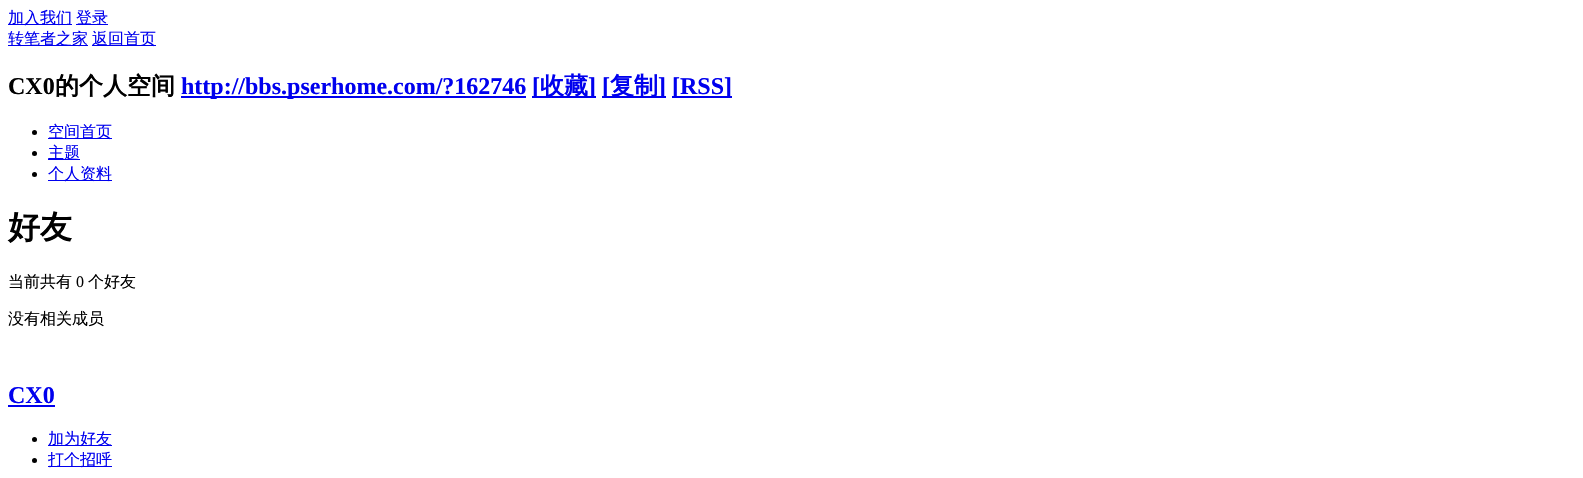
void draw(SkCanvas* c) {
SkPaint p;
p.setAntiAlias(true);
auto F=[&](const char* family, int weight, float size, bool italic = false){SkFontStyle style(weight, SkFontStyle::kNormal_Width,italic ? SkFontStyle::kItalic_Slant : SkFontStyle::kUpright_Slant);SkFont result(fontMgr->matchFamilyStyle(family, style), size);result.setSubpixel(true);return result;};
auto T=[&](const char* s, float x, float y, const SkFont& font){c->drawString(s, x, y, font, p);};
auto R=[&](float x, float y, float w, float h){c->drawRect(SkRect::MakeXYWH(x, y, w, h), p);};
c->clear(0xffffffff);
p.setColor(0xff0000ee);
R(8,24,64,1);
auto f1 = F("WenQuanYi Zen Hei",500,16);
T("加入我们",8,23,f1);
R(76,24,32,1);
T("登录",76,23,f1);
R(8,45,80,1);
T("转笔者之家",8,44,f1);
R(92,45,64,1);
T("返回首页",92,44,f1);
auto f2 = F("Liberation Serif",700,24);
p.setColor(0xff000000);
T("CX0",8,94,f2);
auto f3 = F("WenQuanYi Zen Hei",700,24);
T("的个人空间",55,94,f3);
p.setColor(0xff0000ee);
R(181,96,345,2);
T("http://bbs.pserhome.com/?162746",181,94,f2);
R(532,96,64,2);
T("[",532,94,f2);
T("收藏",540,94,f3);
T("]",588,94,f2);
R(602,96,64,2);
T("[",602,94,f2);
T("复制",610,94,f3);
T("]",658,94,f2);
R(672,96,60,2);
T("[RSS]",672,94,f2);
p.setColor(0xff000000);
c->drawCircle(34.5,132.5,2.5,p);
p.setColor(0xff0000ee);
R(48,138,64,1);
T("空间首页",48,137,f1);
p.setColor(0xff000000);
c->drawCircle(34.5,153.5,2.5,p);
p.setColor(0xff0000ee);
R(48,159,32,1);
T("主题",48,158,f1);
p.setColor(0xff000000);
c->drawCircle(34.5,174.5,2.5,p);
p.setColor(0xff0000ee);
R(48,180,64,1);
T("个人资料",48,179,f1);
auto f4 = F("WenQuanYi Zen Hei",700,32);
p.setColor(0xff000000);
T("好友",8,238,f4);
T("当前共有",8,287,f1);
auto f5 = F("Liberation Serif",400,16);
T("0",76,287,f5);
T("个好友",88,287,f1);
T("没有相关成员",8,324,f1);
p.setColor(0xff0000ee);
T("CX0",8,403,f2);
R(8,405,47,2);
p.setColor(0xff000000);
c->drawCircle(34.5,439.5,2.5,p);
p.setColor(0xff0000ee);
R(48,445,64,1);
T("加为好友",48,444,f1);
p.setColor(0xff000000);
c->drawCircle(34.5,460.5,2.5,p);
p.setColor(0xff0000ee);
R(48,466,64,1);
T("打个招呼",48,465,f1);
}
